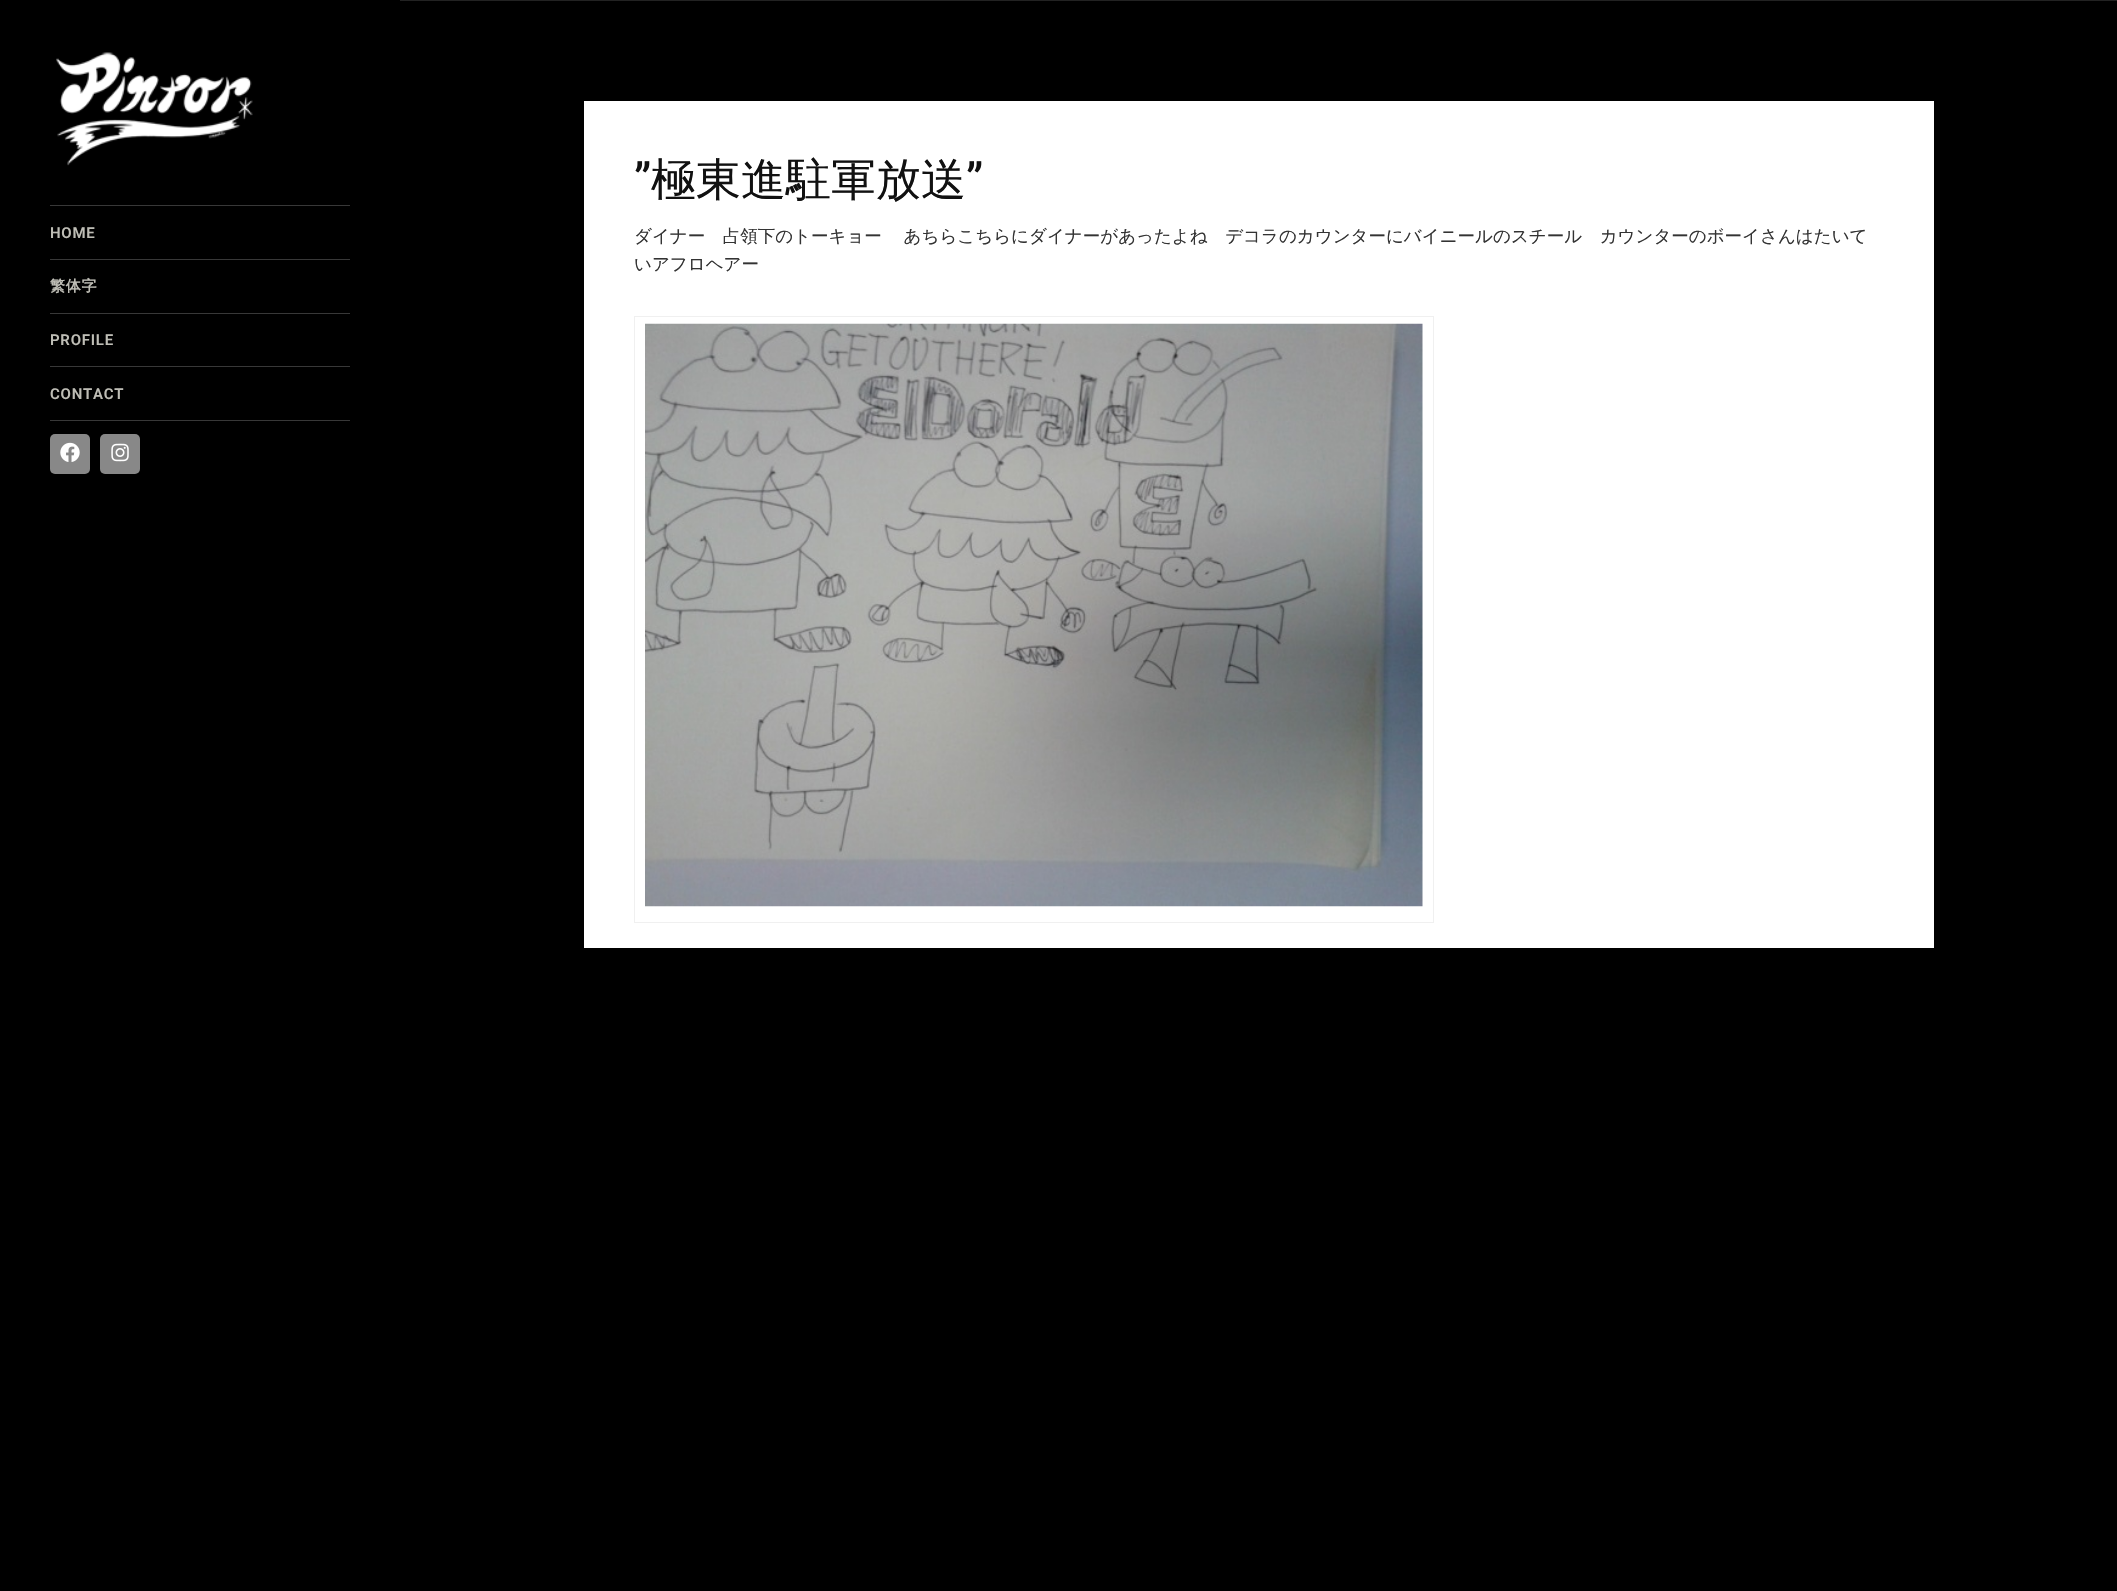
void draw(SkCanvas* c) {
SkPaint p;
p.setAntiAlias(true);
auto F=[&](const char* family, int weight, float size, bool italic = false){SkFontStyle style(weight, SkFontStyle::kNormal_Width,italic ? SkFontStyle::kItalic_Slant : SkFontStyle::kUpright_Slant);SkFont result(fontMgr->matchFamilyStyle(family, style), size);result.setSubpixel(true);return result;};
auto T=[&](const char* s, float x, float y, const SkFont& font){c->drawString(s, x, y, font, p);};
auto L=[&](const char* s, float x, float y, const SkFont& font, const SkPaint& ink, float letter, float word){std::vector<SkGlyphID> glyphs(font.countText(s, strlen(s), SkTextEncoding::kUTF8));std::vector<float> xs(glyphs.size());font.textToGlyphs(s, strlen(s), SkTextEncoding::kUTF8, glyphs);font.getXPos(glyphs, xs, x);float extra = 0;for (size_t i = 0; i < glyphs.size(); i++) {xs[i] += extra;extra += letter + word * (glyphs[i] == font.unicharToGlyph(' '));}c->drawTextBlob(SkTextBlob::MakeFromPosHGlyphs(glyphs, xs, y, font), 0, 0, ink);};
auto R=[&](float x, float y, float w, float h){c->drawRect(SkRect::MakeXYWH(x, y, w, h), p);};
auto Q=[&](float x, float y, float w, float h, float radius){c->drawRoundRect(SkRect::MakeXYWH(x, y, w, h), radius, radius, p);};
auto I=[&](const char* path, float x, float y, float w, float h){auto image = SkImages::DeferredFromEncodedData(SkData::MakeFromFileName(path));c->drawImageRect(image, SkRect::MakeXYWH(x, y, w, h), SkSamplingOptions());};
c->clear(0xff000000);
p.setColor(0xffffffff);
R(584,101,1350,847);
auto f1 = F("Roboto",500,45);
p.setColor(0xff111111);
T("”",634,195,f1);
auto f2 = F("WenQuanYi Zen Hei",500,45);
T("極東進駐軍放送",651,195,f2);
T("”",966,195,f1);
auto f3 = F("WenQuanYi Zen Hei",500,17.5);
p.setColor(0xff333333);
L("ダイナー　占領下のトーキョー 　あちらこちらにダイナーがあったよね　デコラのカウンターにバイニールのスチール　カウンターのボーイさんはたいて",634,242,f3,p,0,-1);
T("いアフロヘアー",634,270,f3);
p.setStroke(true);
p.setStrokeWidth(1);
p.setColor(0xfff0f0f0);
c->drawRect(SkRect::MakeXYWH(634.5,316.5,799,606),p);
I("1.png",645,323,778,584);
p.setStroke(false);
p.setColor(0xff222222);
R(400,0,1717,1);
I("2.png",56,52,197,114);
p.setColor(0xff383838);
R(50,205,300,1);
R(50,259,300,1);
auto f4 = F("Roboto",600,15);
p.setColor(0xffbebdb5);
L("HOME",50,238,f4,p,.75,0);
p.setColor(0xff383838);
R(50,313,300,1);
auto f5 = F("WenQuanYi Zen Hei",700,15);
p.setColor(0xffbebdb5);
L("繁体字",50,291,f5,p,.75,0);
p.setColor(0xff383838);
R(50,366,300,1);
p.setColor(0xffbebdb5);
L("PROFILE",50,345,f4,p,.75,0);
p.setColor(0xff383838);
R(50,420,300,1);
p.setColor(0xffbebdb5);
L("CONTACT",50,399,f4,p,.75,0);
p.setColor(0xff888888);
Q(50,434,40,40,5);
I("3.png",60,442,20,20);
Q(100,434,40,40,5);
I("4.png",111,443,18,19);
}
